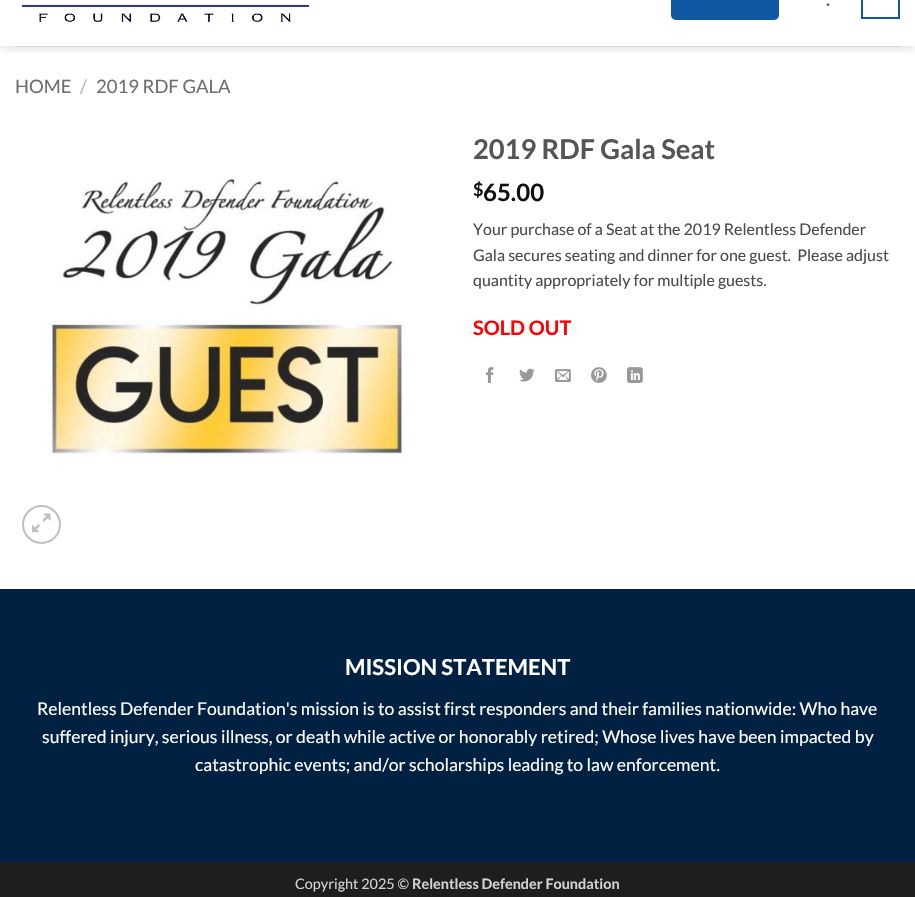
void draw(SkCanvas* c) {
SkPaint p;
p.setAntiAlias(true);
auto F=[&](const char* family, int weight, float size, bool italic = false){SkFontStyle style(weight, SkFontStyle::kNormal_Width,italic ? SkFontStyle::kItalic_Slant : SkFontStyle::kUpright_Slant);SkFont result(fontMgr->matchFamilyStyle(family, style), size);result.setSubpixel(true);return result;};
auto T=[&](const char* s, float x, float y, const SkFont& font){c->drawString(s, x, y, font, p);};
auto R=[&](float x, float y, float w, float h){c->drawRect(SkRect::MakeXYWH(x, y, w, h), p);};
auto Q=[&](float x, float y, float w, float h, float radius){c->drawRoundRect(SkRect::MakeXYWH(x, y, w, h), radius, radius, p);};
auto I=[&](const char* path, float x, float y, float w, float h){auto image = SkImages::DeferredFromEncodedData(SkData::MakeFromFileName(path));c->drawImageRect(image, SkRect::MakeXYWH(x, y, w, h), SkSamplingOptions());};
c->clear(0xffffffff);
c->save();
c->clipRect(SkRect::MakeXYWH(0,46,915,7));
p.setColor(0x26000000);
p.setMaskFilter(SkMaskFilter::MakeBlur(kNormal_SkBlurStyle, 5));
c->drawRect(SkRect::MakeXYWH(1,-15,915,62),p);
p.setMaskFilter(nullptr);
c->restore();
I("1.png",21,4,288,18);
p.setColor(0xff1059a2);
Q(671,-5,108,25,5);
p.setStroke(true);
p.setStrokeWidth(1);
p.setColor(0x0d000000);
c->drawRect(SkRect::MakeXYWH(671.5,-.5,107,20),p);
auto f1 = F("Lato",700,17.6);
p.setStroke(false);
p.setColor(0xff656565);
T(".",826,6,f1);
p.setStroke(true);
p.setStrokeWidth(2);
p.setColor(0xff1059a2);
c->drawRect(SkRect::MakeXYWH(862,-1,37,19),p);
p.setStroke(false);
p.setColor(0xffdadada);
R(15,46,885,1);
auto f2 = F("Lato",400,18.5);
p.setColor(0xff6e6e6e);
T("HOME",15,93,f2);
p.setColor(0xffb2b2b2);
T("/",80,93,f2);
p.setColor(0xff6e6e6e);
T("2019 RDF GALA",96,93,f2);
I("2.png",49,177,356,280);
p.setStroke(true);
p.setColor(0xffc0c0c0);
c->drawCircle(41.5,524.5,18.5,p);
I("3.png",32,513,19,20);
auto f3 = F("Lato",700,27.25);
p.setStroke(false);
p.setColor(0xff555555);
T("2019 RDF Gala Seat",473,159,f3);
auto f4 = F("Lato",700,18);
p.setColor(0xff111111);
T("$",473,196,f4);
auto f5 = F("Lato",700,24);
T("65.00",483,201,f5);
auto f6 = F("Lato",400,16);
p.setColor(0xff4a4a4a);
T("Your purchase of a Seat at the 2019 Relentless Defender",473,235,f6);
T("Gala secures seating and dinner for one guest.  Please adjust",473,261,f6);
T("quantity appropriately for multiple guests.",473,286,f6);
auto f7 = F("Lato",700,20);
p.setColor(0xffff0000);
T("SOLD OUT",473,335,f7);
I("4.png",485,367,9,16);
I("5.png",519,368,16,14);
I("6.png",555,369,16,13);
I("7.png",591,367,16,16);
I("8.png",627,367,16,16);
p.setColor(0xff002142);
R(0,589,915,273);
auto f8 = F("Lato",700,22);
p.setColor(0xffffffff);
T("MISSION STATEMENT",345,675,f8);
auto f9 = F("Lato",400,17.6);
T("Relentless Defender Foundation's mission is to assist first responders and their families nationwide: Who have",37,715,f9);
T("suffered injury, serious illness, or death while active or honorably retired; Whose lives have been impacted by",42,743,f9);
T("catastrophic events; and/or scholarships leading to law enforcement.",195,771,f9);
p.setColor(0xff1e1e1e);
R(0,862,915,35);
auto f10 = F("Lato",400,14.4);
p.setColor(0xffd2d2d2);
T("Copyright 2025 ©",295,889,f10);
auto f11 = F("Lato",700,14.4);
T("Relentless Defender Foundation",412,889,f11);
}
